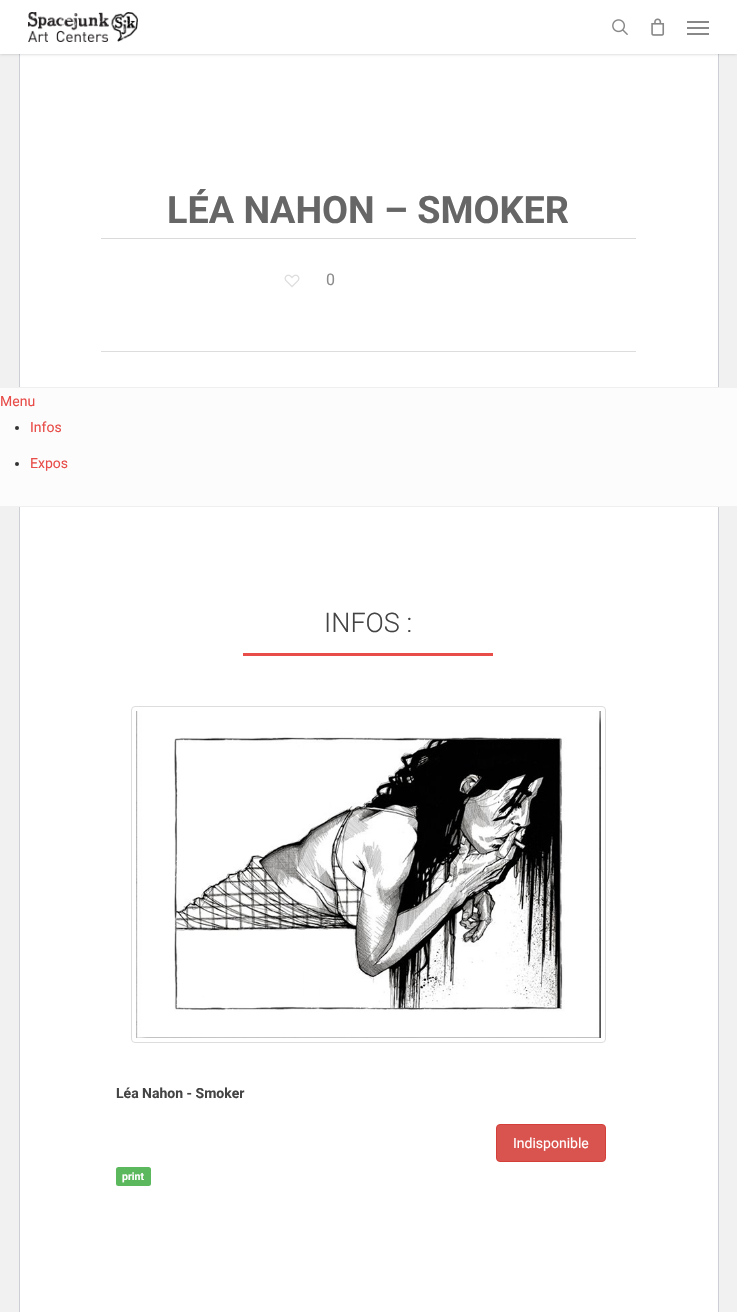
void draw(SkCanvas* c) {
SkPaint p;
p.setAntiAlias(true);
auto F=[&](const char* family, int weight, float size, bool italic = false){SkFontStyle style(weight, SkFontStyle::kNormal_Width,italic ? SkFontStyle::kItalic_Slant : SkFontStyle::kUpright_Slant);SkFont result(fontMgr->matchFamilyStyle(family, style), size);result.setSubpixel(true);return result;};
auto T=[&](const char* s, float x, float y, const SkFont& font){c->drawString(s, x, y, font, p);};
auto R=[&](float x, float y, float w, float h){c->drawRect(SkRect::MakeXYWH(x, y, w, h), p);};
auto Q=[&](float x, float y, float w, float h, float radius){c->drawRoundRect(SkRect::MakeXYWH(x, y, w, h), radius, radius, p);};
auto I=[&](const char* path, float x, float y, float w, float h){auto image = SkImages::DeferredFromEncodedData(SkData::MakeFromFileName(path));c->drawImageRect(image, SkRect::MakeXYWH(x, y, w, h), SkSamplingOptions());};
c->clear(0xfff1f1f1);
p.setColor(0xffffffff);
R(20,54,698,1258);
p.setStroke(true);
p.setStrokeWidth(1);
p.setColor(0xffccd0d4);
c->drawRect(SkRect::MakeXYWH(19.5,50.5,699,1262),p);
p.setStroke(false);
p.setColor(0x38000000);
p.setMaskFilter(SkMaskFilter::MakeBlur(kNormal_SkBlurStyle, 1.5));
c->drawRect(SkRect::MakeXYWH(0,0,737,54),p);
p.setMaskFilter(nullptr);
p.setColor(0xffffffff);
R(0,0,737,54);
I("1.png",28,12,110,30);
I("2.png",612,19,16,16);
I("3.png",651,18,14,18);
p.setColor(0xff888888);
R(687,21,22,2);
R(687,33,22,2);
R(687,27,22,2);
p.setColor(0xffdddddd);
R(101,351,535,1);
p.setColor(0xffdadada);
R(101,238,535,1);
auto f1 = F("Roboto",700,37.75);
p.setColor(0xff666666);
T("LÉA NAHON – SMOKER",167,223,f1);
I("4.png",284,274,16,14);
auto f2 = F("Roboto",400,16);
p.setColor(0xff8c8c8c);
T("0",326,285,f2);
p.setColor(0xfffcfcfc);
R(0,388,737,118);
p.setColor(0xffefefef);
R(19,387,700,1);
R(19,506,700,1);
auto f3 = F("Roboto",400,14);
p.setColor(0xffe84d49);
T("Menu",0,406,f3);
p.setColor(0xff333333);
c->drawCircle(17,428,2,p);
p.setColor(0xffe84d49);
T("Infos",30,432,f3);
p.setColor(0xff333333);
c->drawCircle(17,464,2,p);
p.setColor(0xffe84d49);
T("Expos",30,468,f3);
auto f4 = F("Roboto",300,27);
p.setColor(0xff444444);
T("INFOS :",324,632,f4);
p.setColor(0xffe84d49);
R(243,653,250,3);
p.setStroke(true);
p.setColor(0xffdddddd);
c->drawRoundRect(SkRect::MakeXYWH(131.5,706.5,474,336),3.5,3.5,p);
I("5.png",136,711,465,327);
auto f5 = F("Roboto",700,14);
p.setStroke(false);
p.setColor(0xff444444);
T("Léa Nahon - Smoker",116,1098,f5);
p.setColor(0xffd9534f);
c->drawRoundRect(SkRect::MakeXYWH(496.5,1124.5,109,37),3.5,3.5,p);
p.setStroke(true);
p.setColor(0xffd43f3a);
c->drawRoundRect(SkRect::MakeXYWH(496.5,1124.5,109,37),3.5,3.5,p);
p.setStroke(false);
p.setColor(0xffffffff);
T("Indisponible",513,1148,f3);
p.setColor(0xff5cb85c);
Q(116,1167,35,19,2.5);
auto f6 = F("Roboto",700,10.5);
p.setColor(0xffffffff);
T("print",122,1180,f6);
}
